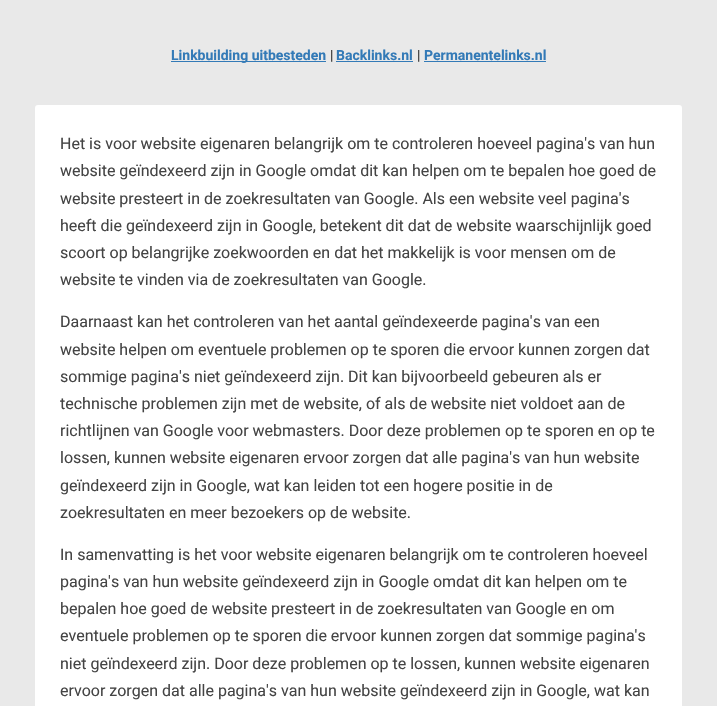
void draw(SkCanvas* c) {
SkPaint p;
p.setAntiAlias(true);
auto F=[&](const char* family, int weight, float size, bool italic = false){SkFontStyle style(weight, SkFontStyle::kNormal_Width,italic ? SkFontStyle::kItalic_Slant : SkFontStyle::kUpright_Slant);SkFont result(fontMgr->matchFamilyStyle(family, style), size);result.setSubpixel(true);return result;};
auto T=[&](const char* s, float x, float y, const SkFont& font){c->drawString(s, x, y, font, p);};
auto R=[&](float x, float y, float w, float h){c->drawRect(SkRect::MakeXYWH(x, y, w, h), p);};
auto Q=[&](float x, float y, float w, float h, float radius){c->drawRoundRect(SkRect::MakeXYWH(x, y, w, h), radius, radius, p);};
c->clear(0xffe9e9e9);
p.setColor(0xff337ab7);
R(171,61,155,1);
auto f1 = F("Roboto",700,14);
T("Linkbuilding uitbesteden",171,60,f1);
auto f2 = F("Roboto",400,14);
p.setColor(0xff333333);
T("|",330,60,f2);
p.setColor(0xff337ab7);
T("Backlinks.nl",336,60,f1);
R(336,61,77,1);
p.setColor(0xff333333);
T("|",417,60,f2);
p.setColor(0xff337ab7);
T("Permanentelinks.nl",424,60,f1);
R(424,61,122,1);
p.setColor(0xffffffff);
Q(35,105,647,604,3);
auto f3 = F("Roboto",400,16);
p.setColor(0xff444444);
T("Het is voor website eigenaren belangrijk om te controleren hoeveel pagina's van hun",60,149,f3);
T("website geïndexeerd zijn in Google omdat dit kan helpen om te bepalen hoe goed de",60,176,f3);
T("website presteert in de zoekresultaten van Google. Als een website veel pagina's",60,204,f3);
T("heeft die geïndexeerd zijn in Google, betekent dit dat de website waarschijnlijk goed",60,231,f3);
T("scoort op belangrijke zoekwoorden en dat het makkelijk is voor mensen om de",60,258,f3);
T("website te vinden via de zoekresultaten van Google.",60,285,f3);
T("Daarnaast kan het controleren van het aantal geïndexeerde pagina's van een",60,327,f3);
T("website helpen om eventuele problemen op te sporen die ervoor kunnen zorgen dat",60,355,f3);
T("sommige pagina's niet geïndexeerd zijn. Dit kan bijvoorbeeld gebeuren als er",60,382,f3);
T("technische problemen zijn met de website, of als de website niet voldoet aan de",60,409,f3);
T("richtlijnen van Google voor webmasters. Door deze problemen op te sporen en op te",60,436,f3);
T("lossen, kunnen website eigenaren ervoor zorgen dat alle pagina's van hun website",60,463,f3);
T("geïndexeerd zijn in Google, wat kan leiden tot een hogere positie in de",60,491,f3);
T("zoekresultaten en meer bezoekers op de website.",60,518,f3);
T("In samenvatting is het voor website eigenaren belangrijk om te controleren hoeveel",60,560,f3);
T("pagina's van hun website geïndexeerd zijn in Google omdat dit kan helpen om te",60,587,f3);
T("bepalen hoe goed de website presteert in de zoekresultaten van Google en om",60,614,f3);
T("eventuele problemen op te sporen die ervoor kunnen zorgen dat sommige pagina's",60,641,f3);
T("niet geïndexeerd zijn. Door deze problemen op te lossen, kunnen website eigenaren",60,669,f3);
T("ervoor zorgen dat alle pagina's van hun website geïndexeerd zijn in Google, wat kan",60,696,f3);
}
